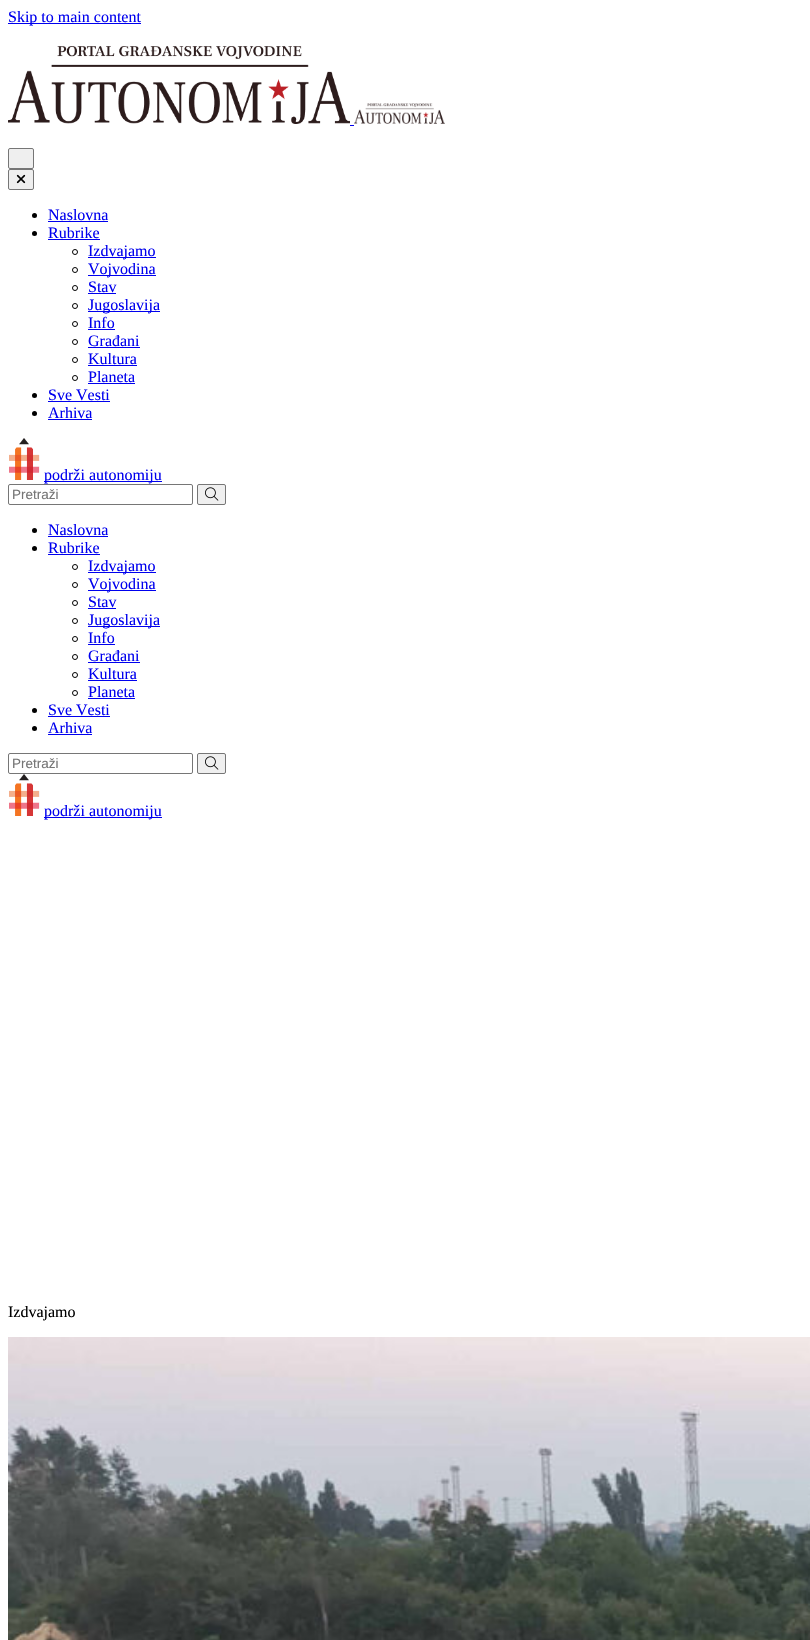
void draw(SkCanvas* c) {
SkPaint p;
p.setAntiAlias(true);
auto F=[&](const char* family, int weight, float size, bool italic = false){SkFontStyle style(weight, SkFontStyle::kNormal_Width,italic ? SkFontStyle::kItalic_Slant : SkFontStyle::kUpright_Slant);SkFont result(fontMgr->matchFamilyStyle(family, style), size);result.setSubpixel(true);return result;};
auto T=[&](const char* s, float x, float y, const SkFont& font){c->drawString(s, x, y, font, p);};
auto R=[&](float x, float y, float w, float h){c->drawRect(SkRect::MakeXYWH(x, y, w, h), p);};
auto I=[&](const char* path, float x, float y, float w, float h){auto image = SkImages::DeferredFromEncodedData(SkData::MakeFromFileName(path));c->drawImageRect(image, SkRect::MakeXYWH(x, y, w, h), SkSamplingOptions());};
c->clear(0xffffffff);
p.setColor(0xff0000ee);
R(8,23,133,1);
auto f1 = F("Liberation Serif",400,16);
T("Skip to main content",8,22,f1);
I("1.png",8,46,342,78);
I("2.png",354,103,91,21);
R(350,125,4,1);
p.setColor(0xffefefef);
c->drawRoundRect(SkRect::MakeXYWH(8.5,148.5,25,20),1.5,1.5,p);
p.setStroke(true);
p.setStrokeWidth(1);
p.setColor(0xff767676);
c->drawRoundRect(SkRect::MakeXYWH(8.5,148.5,25,20),1.5,1.5,p);
p.setStroke(false);
p.setColor(0xffefefef);
c->drawRoundRect(SkRect::MakeXYWH(8.5,169.5,25,20),1.5,1.5,p);
p.setStroke(true);
p.setColor(0xff767676);
c->drawRoundRect(SkRect::MakeXYWH(8.5,169.5,25,20),1.5,1.5,p);
I("3.png",16,174,10,10);
p.setStroke(false);
p.setColor(0xff000000);
c->drawCircle(34.5,215.5,2.5,p);
p.setColor(0xff0000ee);
T("Naslovna",48,220,f1);
R(48,221,60,1);
p.setColor(0xff000000);
c->drawCircle(34.5,233.5,2.5,p);
p.setColor(0xff0000ee);
T("Rubrike",48,238,f1);
R(48,239,52,1);
p.setStroke(true);
p.setColor(0xff000000);
c->drawCircle(75,252,2.5,p);
p.setStroke(false);
p.setColor(0xff0000ee);
R(88,257,68,1);
T("Izdvajamo",88,256,f1);
p.setStroke(true);
p.setColor(0xff000000);
c->drawCircle(75,270,2.5,p);
p.setStroke(false);
p.setColor(0xff0000ee);
R(88,275,68,1);
T("Vojvodina",88,274,f1);
p.setStroke(true);
p.setColor(0xff000000);
c->drawCircle(75,288,2.5,p);
p.setStroke(false);
p.setColor(0xff0000ee);
T("Stav",88,292,f1);
R(88,293,28,1);
p.setStroke(true);
p.setColor(0xff000000);
c->drawCircle(75,306,2.5,p);
p.setStroke(false);
p.setColor(0xff0000ee);
R(88,311,72,1);
T("Jugoslavija",88,310,f1);
p.setStroke(true);
p.setColor(0xff000000);
c->drawCircle(75,324,2.5,p);
p.setStroke(false);
p.setColor(0xff0000ee);
T("Info",88,328,f1);
R(88,329,27,1);
p.setStroke(true);
p.setColor(0xff000000);
c->drawCircle(75,342,2.5,p);
p.setStroke(false);
p.setColor(0xff0000ee);
T("Građani",88,346,f1);
R(88,347,52,1);
p.setStroke(true);
p.setColor(0xff000000);
c->drawCircle(75,360,2.5,p);
p.setStroke(false);
p.setColor(0xff0000ee);
T("Kultura",88,364,f1);
R(88,365,49,1);
p.setStroke(true);
p.setColor(0xff000000);
c->drawCircle(75,378,2.5,p);
p.setStroke(false);
p.setColor(0xff0000ee);
T("Planeta",88,382,f1);
R(88,383,47,1);
p.setColor(0xff000000);
c->drawCircle(34.5,395.5,2.5,p);
p.setColor(0xff0000ee);
T("Sve Vesti",48,400,f1);
R(48,401,62,1);
p.setColor(0xff000000);
c->drawCircle(34.5,413.5,2.5,p);
p.setColor(0xff0000ee);
T("Arhiva",48,418,f1);
R(48,419,44,1);
I("4.png",9,438,31,42);
R(44,481,118,1);
T("podrži autonomiju",44,480,f1);
p.setStroke(true);
p.setColor(0xff767676);
c->drawRoundRect(SkRect::MakeXYWH(8.5,484.5,184,20),1.5,1.5,p);
auto f2 = F("Liberation Sans",400,13.5);
p.setStroke(false);
p.setColor(0xff757575);
T("Pretraži",12,499,f2);
p.setColor(0xffefefef);
c->drawRoundRect(SkRect::MakeXYWH(197.5,484.5,28,20),1.5,1.5,p);
p.setStroke(true);
p.setColor(0xff767676);
c->drawRoundRect(SkRect::MakeXYWH(197.5,484.5,28,20),1.5,1.5,p);
I("5.png",205,487,14,14);
p.setStroke(false);
p.setColor(0xff000000);
c->drawCircle(34.5,530.5,2.5,p);
p.setColor(0xff0000ee);
T("Naslovna",48,535,f1);
R(48,536,60,1);
p.setColor(0xff000000);
c->drawCircle(34.5,548.5,2.5,p);
p.setColor(0xff0000ee);
T("Rubrike",48,553,f1);
R(48,554,52,1);
p.setStroke(true);
p.setColor(0xff000000);
c->drawCircle(75,567,2.5,p);
p.setStroke(false);
p.setColor(0xff0000ee);
R(88,572,68,1);
T("Izdvajamo",88,571,f1);
p.setStroke(true);
p.setColor(0xff000000);
c->drawCircle(75,585,2.5,p);
p.setStroke(false);
p.setColor(0xff0000ee);
R(88,590,68,1);
T("Vojvodina",88,589,f1);
p.setStroke(true);
p.setColor(0xff000000);
c->drawCircle(75,603,2.5,p);
p.setStroke(false);
p.setColor(0xff0000ee);
T("Stav",88,607,f1);
R(88,608,28,1);
p.setStroke(true);
p.setColor(0xff000000);
c->drawCircle(75,621,2.5,p);
p.setStroke(false);
p.setColor(0xff0000ee);
R(88,626,72,1);
T("Jugoslavija",88,625,f1);
p.setStroke(true);
p.setColor(0xff000000);
c->drawCircle(75,639,2.5,p);
p.setStroke(false);
p.setColor(0xff0000ee);
T("Info",88,643,f1);
R(88,644,27,1);
p.setStroke(true);
p.setColor(0xff000000);
c->drawCircle(75,657,2.5,p);
p.setStroke(false);
p.setColor(0xff0000ee);
T("Građani",88,661,f1);
R(88,662,52,1);
p.setStroke(true);
p.setColor(0xff000000);
c->drawCircle(75,675,2.5,p);
p.setStroke(false);
p.setColor(0xff0000ee);
T("Kultura",88,679,f1);
R(88,680,49,1);
p.setStroke(true);
p.setColor(0xff000000);
c->drawCircle(75,693,2.5,p);
p.setStroke(false);
p.setColor(0xff0000ee);
T("Planeta",88,697,f1);
R(88,698,47,1);
p.setColor(0xff000000);
c->drawCircle(34.5,710.5,2.5,p);
p.setColor(0xff0000ee);
T("Sve Vesti",48,715,f1);
R(48,716,62,1);
p.setColor(0xff000000);
c->drawCircle(34.5,728.5,2.5,p);
p.setColor(0xff0000ee);
T("Arhiva",48,733,f1);
R(48,734,44,1);
p.setStroke(true);
p.setColor(0xff767676);
c->drawRoundRect(SkRect::MakeXYWH(8.5,753.5,184,20),1.5,1.5,p);
p.setStroke(false);
p.setColor(0xff757575);
T("Pretraži",12,768,f2);
p.setColor(0xffefefef);
c->drawRoundRect(SkRect::MakeXYWH(197.5,753.5,28,20),1.5,1.5,p);
p.setStroke(true);
p.setColor(0xff767676);
c->drawRoundRect(SkRect::MakeXYWH(197.5,753.5,28,20),1.5,1.5,p);
I("5.png",205,756,14,14);
I("4.png",9,774,31,42);
p.setStroke(false);
p.setColor(0xff0000ee);
R(44,817,118,1);
T("podrži autonomiju",44,816,f1);
p.setColor(0xff000000);
T("Izdvajamo",8,1317,f1);
I("6.png",8,1337,802,303);
}
